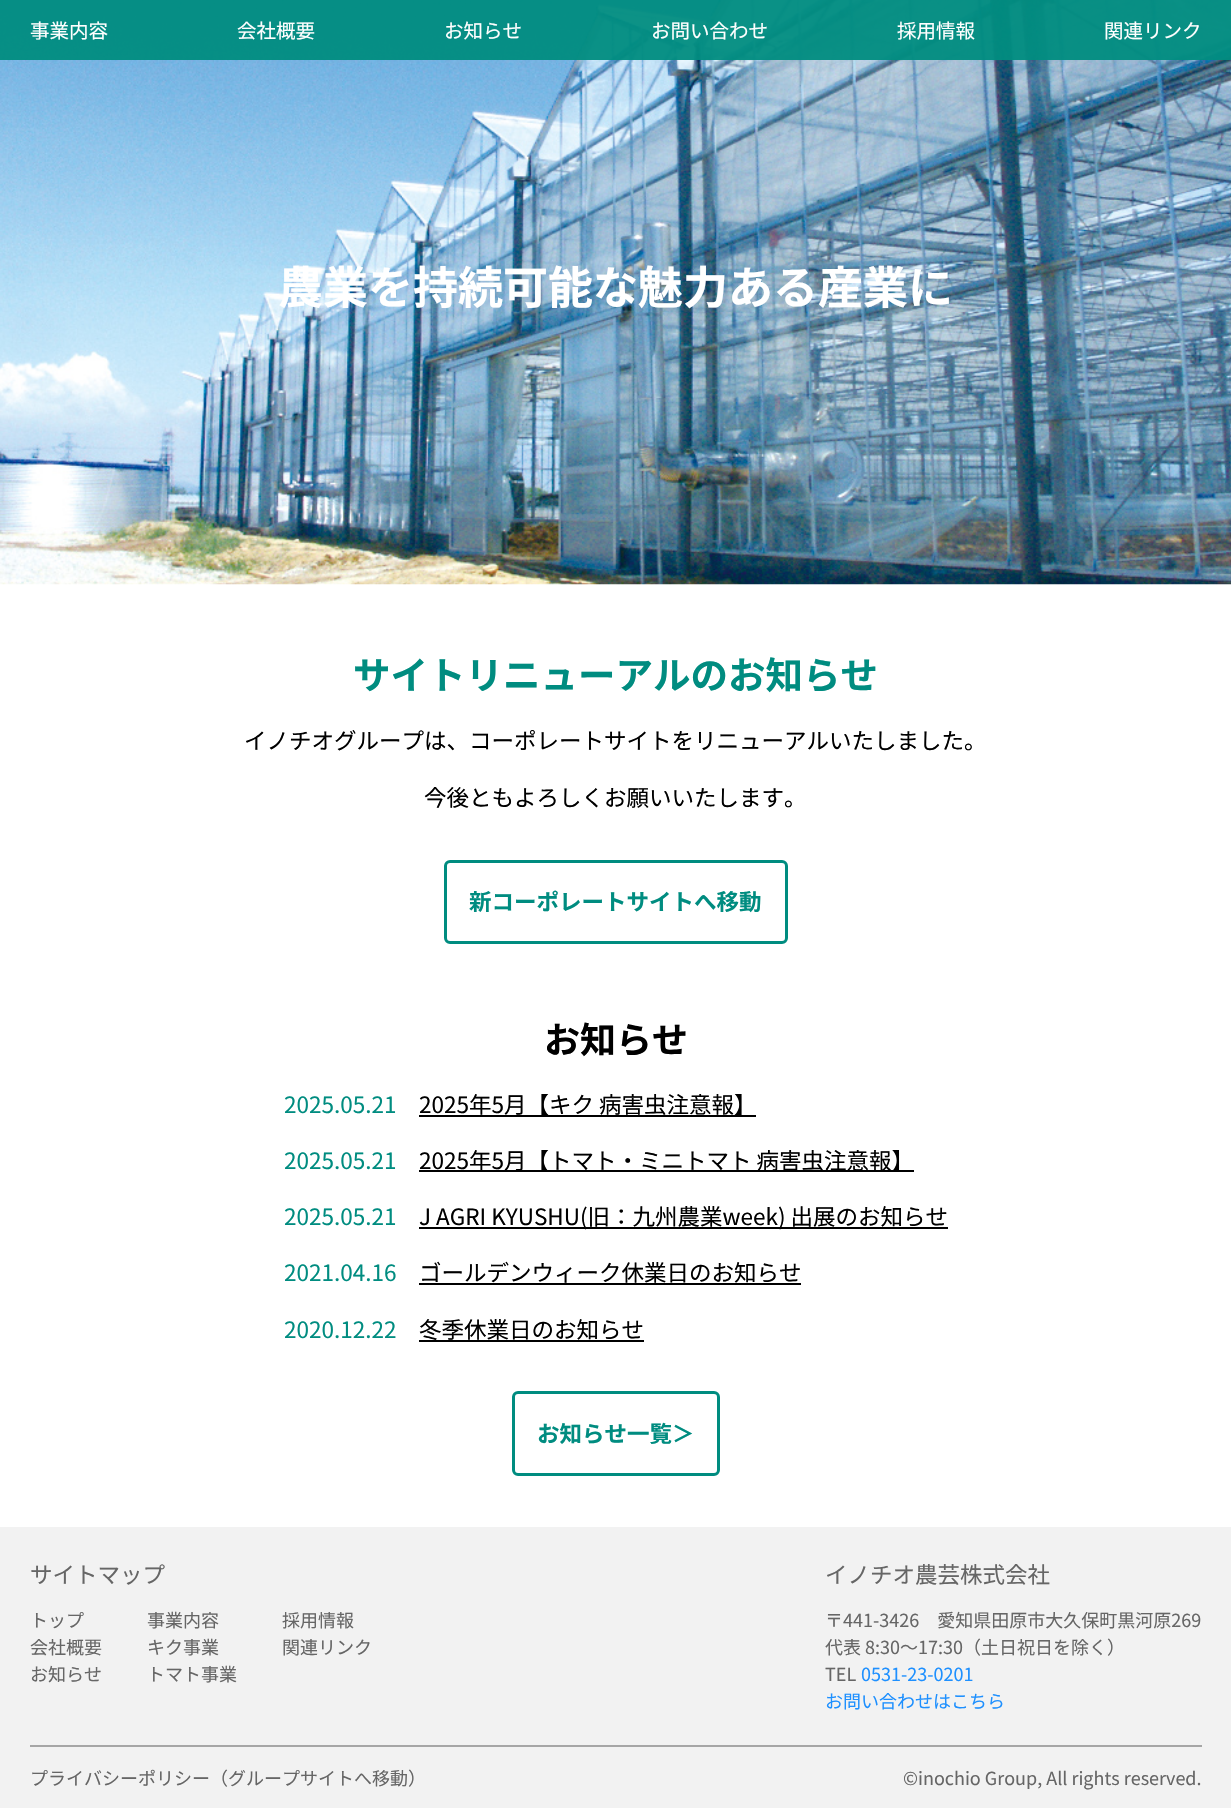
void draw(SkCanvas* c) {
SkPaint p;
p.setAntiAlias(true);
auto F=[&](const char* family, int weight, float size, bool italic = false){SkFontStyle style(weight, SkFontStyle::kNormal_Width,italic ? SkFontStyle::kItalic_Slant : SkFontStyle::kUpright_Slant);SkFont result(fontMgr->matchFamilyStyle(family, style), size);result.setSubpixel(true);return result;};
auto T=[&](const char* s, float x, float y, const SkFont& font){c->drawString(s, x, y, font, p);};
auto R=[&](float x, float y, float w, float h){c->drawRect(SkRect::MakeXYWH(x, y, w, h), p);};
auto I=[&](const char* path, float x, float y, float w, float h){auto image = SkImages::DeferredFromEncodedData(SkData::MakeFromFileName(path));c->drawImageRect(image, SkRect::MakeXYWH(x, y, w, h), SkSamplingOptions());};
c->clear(0xffffffff);
I("1.png",0,0,1231,585);
p.setColor(0xf2008c80);
R(0,0,1231,60);
auto f1 = F("Noto Sans JP",400,19.5);
p.setColor(0xffffffff);
T("事業内容",30,38,f1);
T("会社概要",237,38,f1);
T("お知らせ",444,38,f1);
T("お問い合わせ",651,38,f1);
T("採用情報",897,38,f1);
T("関連リンク",1104,38,f1);
auto f2 = F("Noto Sans JP",700,45);
T("農業を持続可能な魅力ある産業に",278,304,f2);
auto f3 = F("Noto Sans JP",700,37.5);
p.setColor(0xff008c80);
T("サイトリニューアルのお知らせ",353,689,f3);
auto f4 = F("Noto Sans JP",400,22.5);
p.setColor(0xff000000);
T("イノチオグループは、コーポレートサイトをリニューアルいたしました。",244,749,f4);
T("今後ともよろしくお願いいたします。",424,806,f4);
p.setStroke(true);
p.setStrokeWidth(3);
p.setColor(0xff008c80);
c->drawRoundRect(SkRect::MakeXYWH(445.5,861.5,341,81),4.5,4.5,p);
auto f5 = F("Noto Sans JP",700,22.5);
p.setStroke(false);
T("新コーポレートサイトへ移動",469,910,f5);
auto f6 = F("Noto Sans JP",700,36);
p.setColor(0xff000000);
T("お知らせ",544,1053,f6);
p.setColor(0xff008c80);
T("2025.05.21",284,1113,f4);
p.setColor(0xff000000);
T("2025年5月【キク 病害虫注意報】",419,1113,f4);
R(419,1115,337,2);
p.setColor(0xff008c80);
T("2025.05.21",284,1169,f4);
p.setColor(0xff000000);
R(419,1170,495,2);
T("2025年5月【トマト・ミニトマト 病害虫注意報】",419,1169,f4);
p.setColor(0xff008c80);
T("2025.05.21",284,1225,f4);
p.setColor(0xff000000);
R(419,1227,529,2);
T("J AGRI KYUSHU(旧：九州農業week) 出展のお知らせ",419,1225,f4);
p.setColor(0xff008c80);
T("2021.04.16",284,1281,f4);
p.setColor(0xff000000);
T("ゴールデンウィーク休業日のお知らせ",419,1281,f4);
R(419,1283,382,2);
p.setColor(0xff008c80);
T("2020.12.22",284,1338,f4);
p.setColor(0xff000000);
R(419,1340,225,2);
T("冬季休業日のお知らせ",419,1338,f4);
p.setStroke(true);
p.setColor(0xff008c80);
c->drawRoundRect(SkRect::MakeXYWH(513.5,1392.5,205,82),4.5,4.5,p);
p.setStroke(false);
T("お知らせ一覧＞",537,1442,f5);
p.setColor(0xfff2f2f2);
R(0,1527,1231,281);
p.setColor(0xff666666);
T("サイトマップ",30,1583,f4);
auto f7 = F("Noto Sans JP",400,18);
T("トップ",30,1627,f7);
T("会社概要",30,1654,f7);
T("お知らせ",30,1681,f7);
T("事業内容",147,1627,f7);
T("キク事業",147,1654,f7);
T("トマト事業",147,1681,f7);
T("採用情報",282,1627,f7);
T("関連リンク",282,1654,f7);
T("イノチオ農芸株式会社",825,1583,f4);
T("〒441-3426　愛知県田原市大久保町黒河原269",825,1627,f7);
T("代表 8:30〜17:30（土日祝日を除く）",825,1654,f7);
T("TEL",825,1681,f7);
p.setColor(0xff1e90ff);
T("0531-23-0201",861,1681,f7);
T("お問い合わせはこちら",825,1708,f7);
p.setColor(0xffa6a6a6);
R(30,1745,1172,2);
p.setColor(0xff666666);
T("プライバシーポリシー（グループサイトへ移動）",30,1785,f7);
T("©inochio Group, All rights reserved.",903,1785,f7);
}
